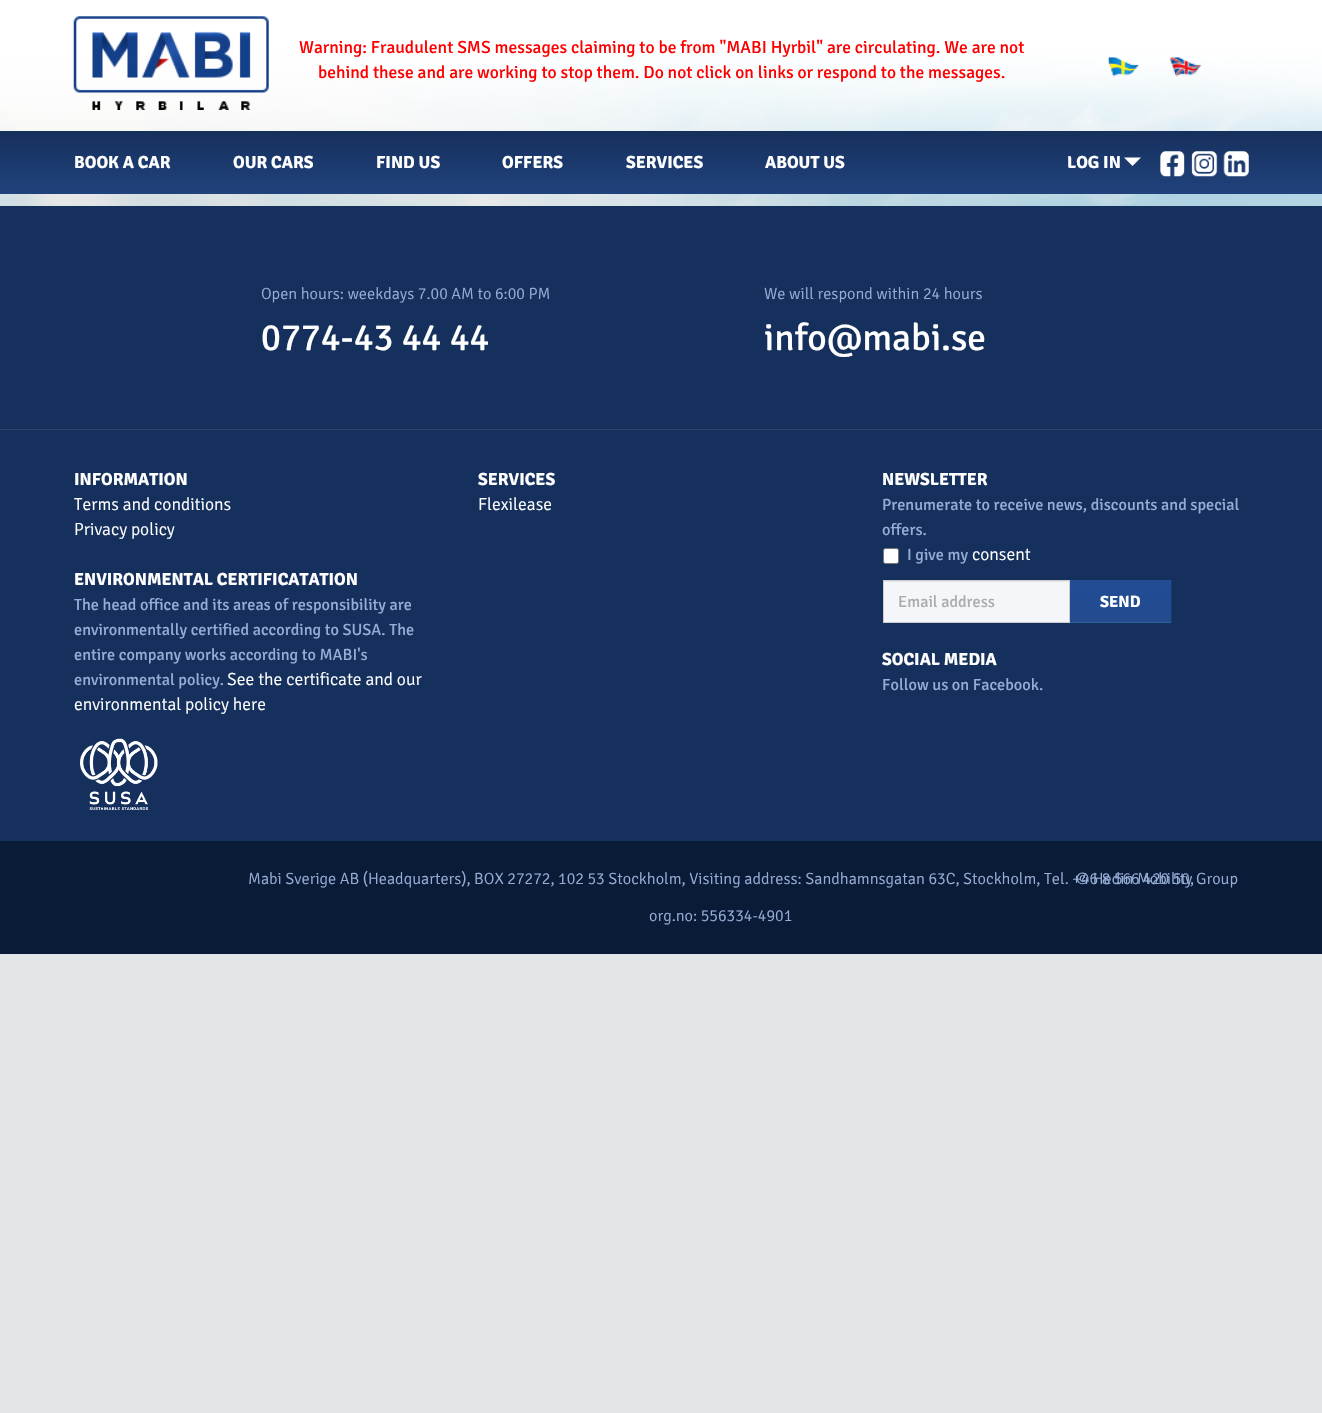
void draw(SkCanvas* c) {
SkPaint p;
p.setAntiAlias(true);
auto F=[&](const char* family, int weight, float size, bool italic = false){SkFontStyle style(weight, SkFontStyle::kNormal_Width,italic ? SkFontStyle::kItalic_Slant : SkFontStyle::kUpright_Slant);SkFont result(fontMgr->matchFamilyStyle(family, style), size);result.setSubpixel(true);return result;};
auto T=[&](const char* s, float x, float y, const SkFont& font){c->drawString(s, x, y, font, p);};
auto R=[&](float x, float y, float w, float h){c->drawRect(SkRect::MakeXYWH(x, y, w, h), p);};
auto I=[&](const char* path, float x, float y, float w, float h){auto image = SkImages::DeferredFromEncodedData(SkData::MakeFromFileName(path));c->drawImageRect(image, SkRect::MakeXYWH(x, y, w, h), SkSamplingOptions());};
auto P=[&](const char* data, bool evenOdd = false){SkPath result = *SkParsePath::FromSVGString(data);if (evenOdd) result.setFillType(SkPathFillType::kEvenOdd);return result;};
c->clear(0xffe4e5e9);
I("1.png",0,0,1322,206);
I("2.png",73,16,196,94);
auto f1 = F("Signika",400,17.5);
p.setColor(0xffff0000);
T("Warning: Fraudulent SMS messages claiming to be from \"MABI Hyrbil\" are circulating. We are not",299,53,f1);
T("behind these and are working to stop them. Do not click on links or respond to the messages.",318,78,f1);
I("3.png",1108,57,31,20);
I("4.png",1169,57,33,20);
{
const SkColor colors[] = {0xff16305d,0xff20427c};
const float stops[] = {0,1};
const SkPoint ends[] = {{661,131}, {661,194}};
p.setShader(SkGradientShader::MakeLinear(ends, colors, stops, 2, SkTileMode::kClamp));
p.setAlpha(255);
}
R(0,131,1322,63);
auto f2 = F("Signika",700,17.5);
p.setShader(nullptr);
p.setColor(0xffffffff);
T("BOOK A CAR",74,168,f2);
T("OUR CARS",233,168,f2);
T("FIND US",376,168,f2);
T("OFFERS",502,168,f2);
T("SERVICES",626,168,f2);
T("ABOUT US",765,168,f2);
T("LOG IN",1067,168,f2);
c->drawPath(P("M1124 157.5h17l-8.5 8.5z"),p);
I("5.png",1160,151,25,26);
I("6.png",1191,151,27,26);
I("7.png",1223,151,26,26);
p.setColor(0xff16305d);
R(0,206,1322,223);
auto f3 = F("Signika",300,16.25);
p.setColor(0xff96add5);
T("Open hours: weekdays 7.00 AM to 6:00 PM",261,299,f3);
auto f4 = F("Signika",400,37.5);
p.setColor(0xffffffff);
T("0774-43 44 44",261,350,f4);
p.setColor(0xff96add5);
T("We will respond within 24 hours",764,299,f3);
p.setColor(0xffffffff);
T("info@mabi.se",764,350,f4);
p.setColor(0xff16305d);
R(0,430,1322,411);
p.setColor(0xff2e456e);
R(0,429,1322,1);
p.setColor(0xffffffff);
T("INFORMATION",74,485,f2);
auto f5 = F("Signika",300,17.5);
T("Terms and conditions",74,510,f5);
T("Privacy policy",74,535,f5);
T("ENVIRONMENTAL CERTIFICATATION",74,585,f2);
auto f6 = F("Signika",400,16.25);
p.setColor(0xff96add5);
T("The head office and its areas of responsibility are",74,610,f6);
T("environmentally certified according to SUSA. The",74,635,f6);
T("entire company works according to MABI's",74,660,f6);
T("environmental policy.",74,685,f6);
p.setColor(0xffffffff);
T("See the certificate and our",227,685,f5);
T("environmental policy here",74,710,f5);
I("8.png",80,738,78,72);
T("SERVICES",478,485,f2);
T("Flexilease",478,510,f5);
T("NEWSLETTER",882,485,f2);
p.setColor(0xff96add5);
T("Prenumerate to receive news, discounts and special",882,510,f6);
T("offers.",882,535,f6);
p.setColor(0xffffffff);
c->drawRoundRect(SkRect::MakeXYWH(883.5,548.5,15,15),2,2,p);
p.setStroke(true);
p.setStrokeWidth(1);
p.setColor(0xff767676);
c->drawRoundRect(SkRect::MakeXYWH(883.5,548.5,15,15),2,2,p);
p.setStroke(false);
p.setColor(0xff96add5);
T("I give my",907,560,f6);
p.setColor(0xffffffff);
T("consent",972,560,f5);
p.setColor(0xfff5f6f9);
R(884,582,185,40);
p.setColor(0xffe3e4e6);
R(884,581,185,1);
p.setStroke(true);
p.setColor(0xffcccccc);
c->drawRect(SkRect::MakeXYWH(883.5,580.5,186,42),p);
p.setStroke(false);
p.setColor(0xffaaabae);
T("Email address",898,607,f6);
p.setColor(0xff337ab7);
R(1070,622,101,1);
I("9.png",1070,580,102,43);
auto f7 = F("Signika",700,16.25);
p.setColor(0xffffffff);
T("SEND",1100,607,f7);
T("SOCIAL MEDIA",882,665,f2);
p.setColor(0xff96add5);
T("Follow us on Facebook.",882,690,f6);
p.setColor(0xff0a1b38);
R(0,841,1322,113);
p.setColor(0xff96add5);
T("Mabi Sverige AB (Headquarters), BOX 27272, 102 53 Stockholm, Visiting address: Sandhamnsgatan 63C, Stockholm, Tel. +46 8 566 420 50,",248,884,f3);
T("org.no: 556334-4901",649,921,f3);
T("© Hedin Mobility Group",1076,884,f3);
}
